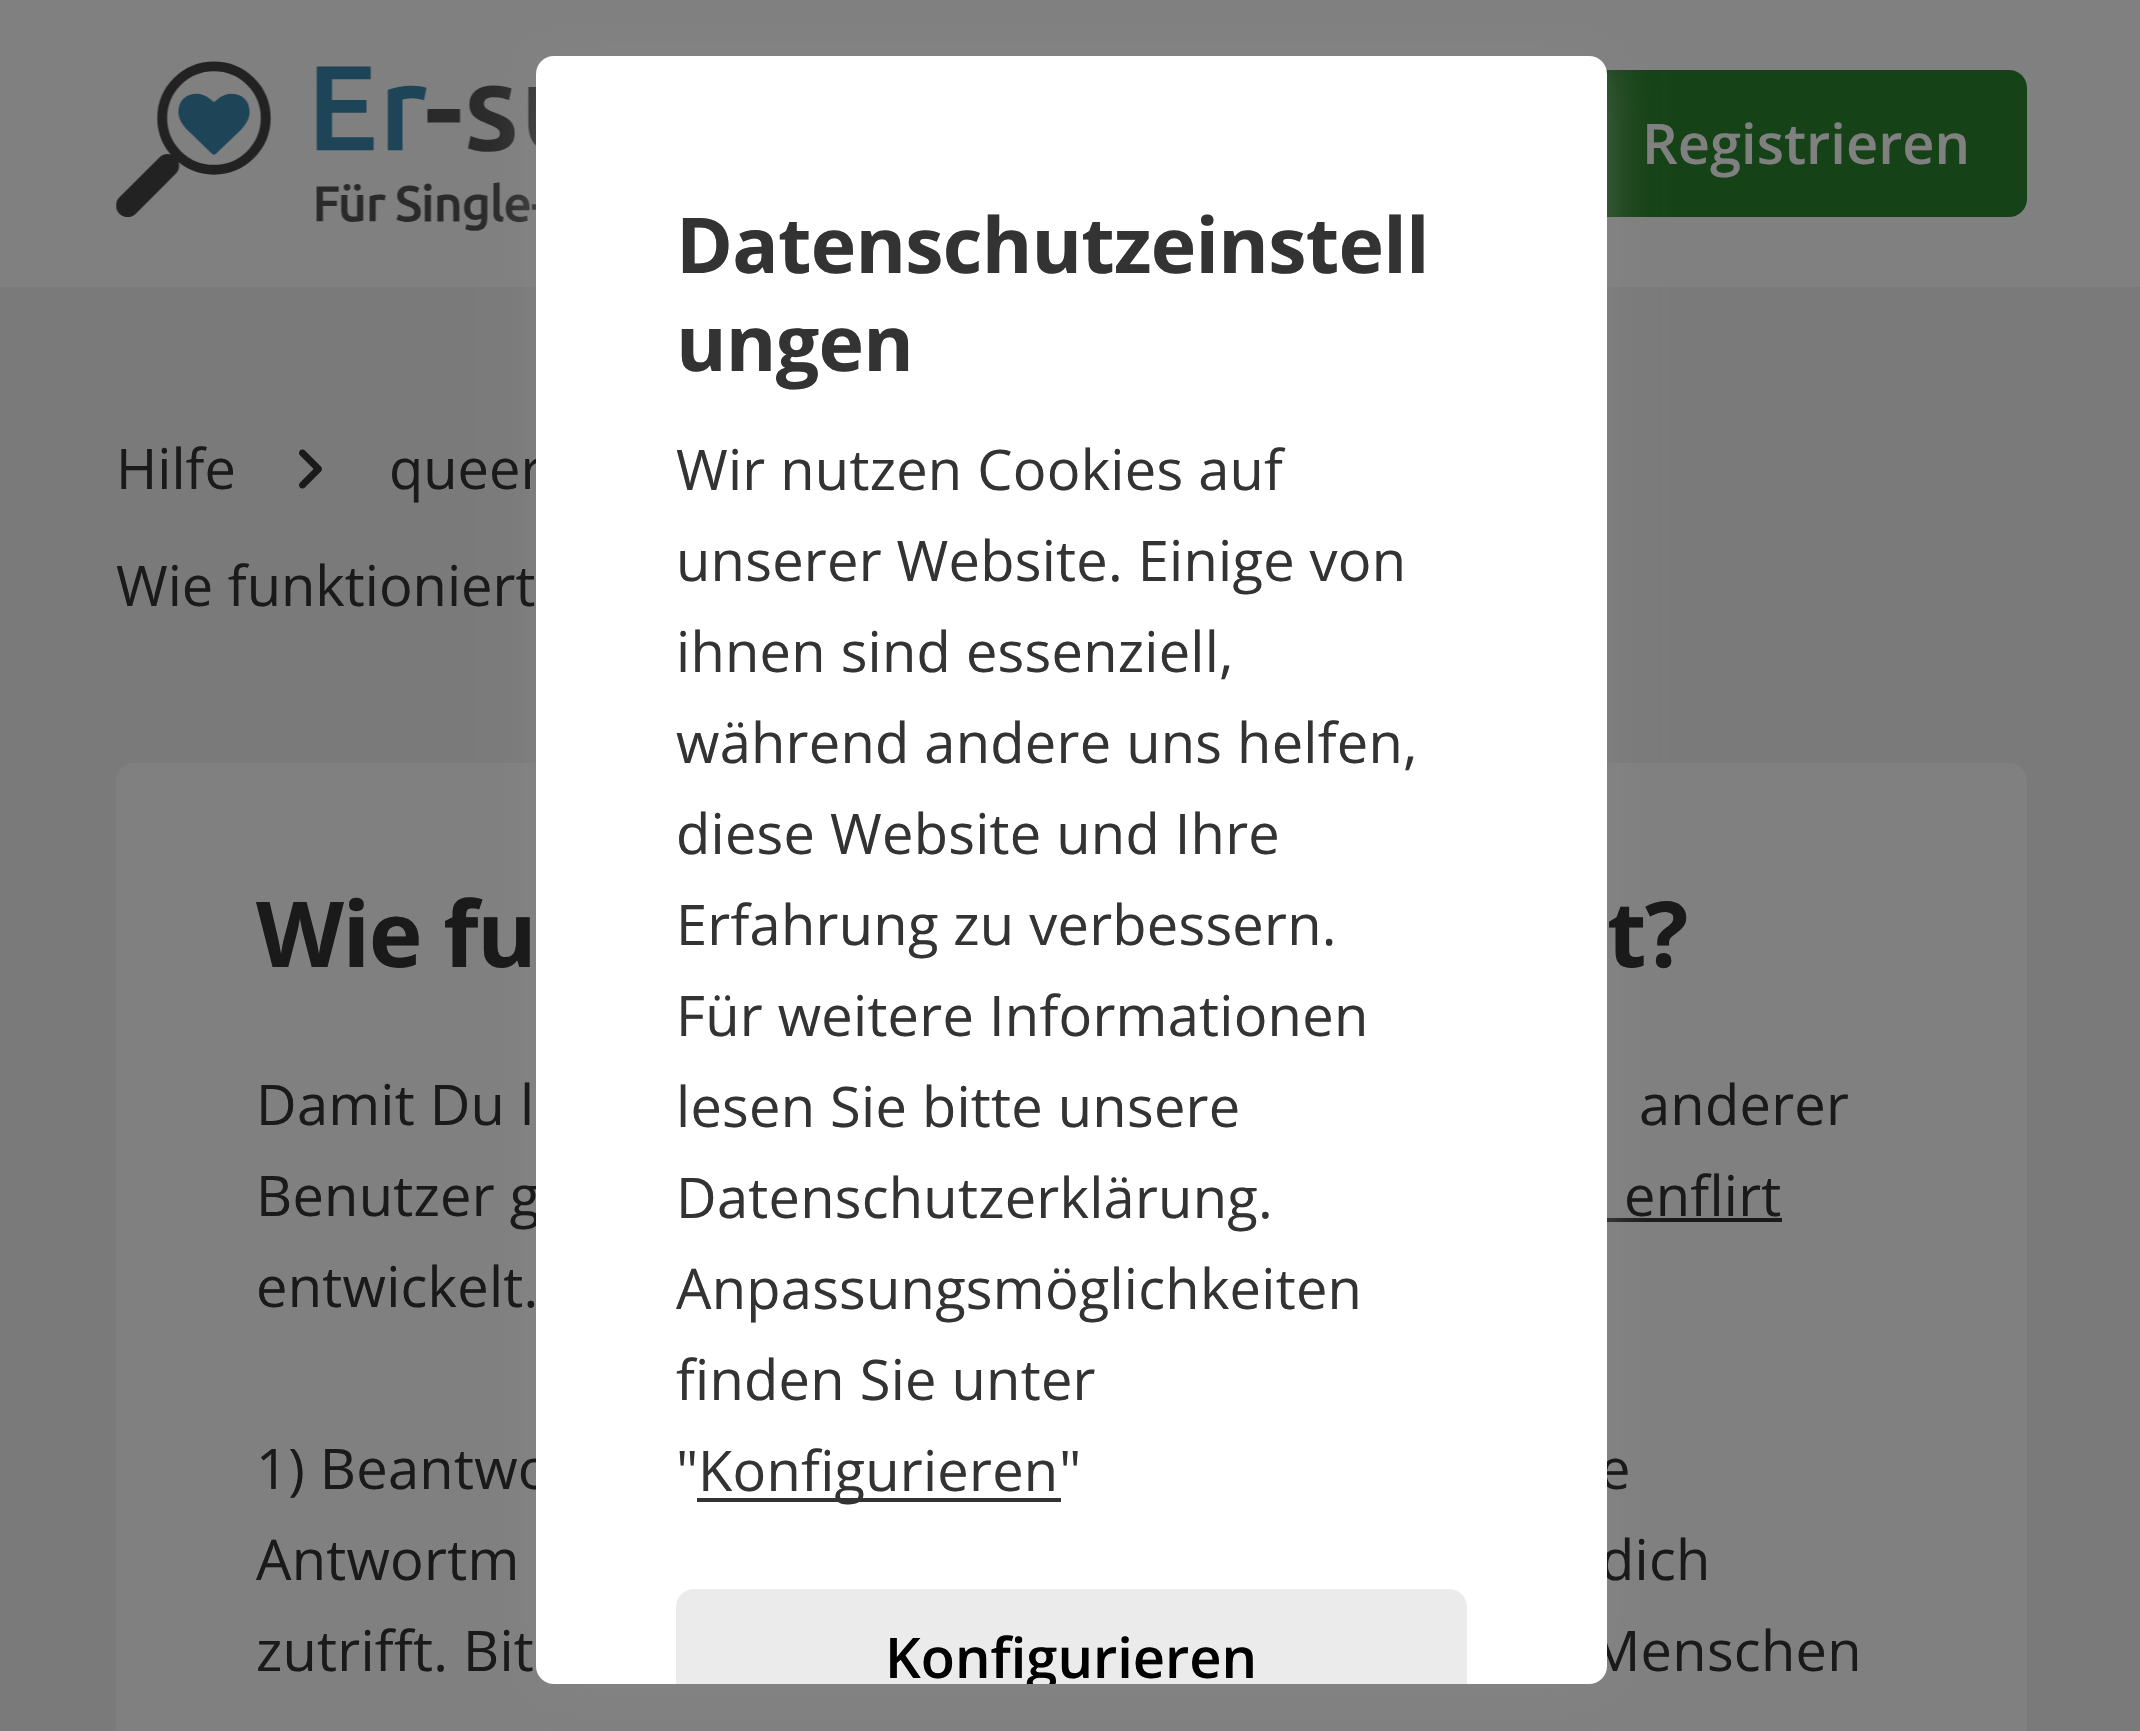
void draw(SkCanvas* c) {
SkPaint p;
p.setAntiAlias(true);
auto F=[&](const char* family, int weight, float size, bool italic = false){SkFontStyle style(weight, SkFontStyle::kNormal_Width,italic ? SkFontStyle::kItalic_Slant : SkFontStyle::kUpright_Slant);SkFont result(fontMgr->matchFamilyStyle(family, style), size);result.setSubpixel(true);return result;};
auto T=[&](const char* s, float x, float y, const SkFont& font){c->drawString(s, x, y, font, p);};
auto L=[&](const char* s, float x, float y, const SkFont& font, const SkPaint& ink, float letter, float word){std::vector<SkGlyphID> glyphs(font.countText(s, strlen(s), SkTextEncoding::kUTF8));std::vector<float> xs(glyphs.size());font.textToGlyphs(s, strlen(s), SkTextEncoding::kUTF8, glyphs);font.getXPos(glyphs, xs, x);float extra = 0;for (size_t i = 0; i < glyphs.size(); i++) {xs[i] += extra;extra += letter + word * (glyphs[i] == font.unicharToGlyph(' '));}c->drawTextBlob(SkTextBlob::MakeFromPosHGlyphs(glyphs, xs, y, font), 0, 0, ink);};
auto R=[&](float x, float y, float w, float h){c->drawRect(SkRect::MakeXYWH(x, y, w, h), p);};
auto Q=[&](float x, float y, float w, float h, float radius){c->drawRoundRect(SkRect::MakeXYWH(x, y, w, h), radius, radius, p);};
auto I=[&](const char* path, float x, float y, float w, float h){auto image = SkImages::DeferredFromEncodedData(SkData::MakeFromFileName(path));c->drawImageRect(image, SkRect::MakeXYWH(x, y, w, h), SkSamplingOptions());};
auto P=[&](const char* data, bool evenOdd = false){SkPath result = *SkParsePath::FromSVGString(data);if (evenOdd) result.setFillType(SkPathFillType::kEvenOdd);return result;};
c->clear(0xff7a7a7a);
p.setColor(0xff808080);
R(0,0,2140,287);
I("1.png",116,61,420,170);
p.setColor(0xff154216);
Q(1586,70,441,147,18);
auto f1 = F("Open Sans",600,56);
p.setColor(0xff808080);
T("Registrieren",1642,164,f1);
Q(116,763,1911,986,18);
p.setColor(0xff1a1a1a);
R(1607,1218,175,4);
c->save();
c->clipPath(P("M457 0h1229v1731h-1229zm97 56h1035c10 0 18 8 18 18v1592c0 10-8 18-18 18h-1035c-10 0-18-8-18-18v-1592c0-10 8-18 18-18z",true),true);
p.setColor(0x80888888);
p.setMaskFilter(SkMaskFilter::MakeBlur(kNormal_SkBlurStyle, 26));
c->drawRoundRect(SkRect::MakeXYWH(536,56,1071,1628),18,18,p);
p.setMaskFilter(nullptr);
c->restore();
auto f2 = F("Open Sans",400,56);
p.setColor(0xff1a1a1a);
T("queer",389,489,f2);
L("Benutzer g",256,1216,f2,p,.25,0);
L("1) Beantwo",256,1489,f2,p,.25,0);
L("e",1599,1489,f2,p,.25,0);
L("dich",1600,1580,f2,p,.25,0);
L("Menschen",1590,1671,f2,p,.25,0);
p.setColor(0xffffffff);
Q(536,56,1071,1628,18);
auto f3 = F("Open Sans",700,77);
p.setColor(0xff333333);
L("Datenschutzeinstell",676,273,f3,p,-.75,0);
L("ungen",676,371,f3,p,-.75,0);
L("Wir nutzen Cookies auf",676,490,f2,p,.25,0);
L("unserer Website. Einige von",676,581,f2,p,.25,0);
L("ihnen sind essenziell,",676,672,f2,p,.25,0);
L("während andere uns helfen,",676,763,f2,p,.25,0);
L("diese Website und Ihre",676,854,f2,p,.25,0);
L("Erfahrung zu verbessern.",676,945,f2,p,.25,0);
L("Für weitere Informationen",676,1036,f2,p,.25,0);
L("lesen Sie bitte unsere",676,1127,f2,p,.25,0);
L("Datenschutzerklärung.",676,1218,f2,p,.25,0);
L("Anpassungsmöglichkeiten",676,1309,f2,p,.25,0);
L("finden Sie unter",676,1400,f2,p,.25,0);
L("\"",676,1491,f2,p,.25,0);
R(697,1498,364,4);
L("Konfigurieren",698,1491,f2,p,.25,0);
L("\"",1059,1491,f2,p,.25,0);
p.setColor(0xffebebeb);
c->drawPath(P("M694 1589h755c10 0 18 8 18 18v77h-791v-77c0-10 8-18 18-18z"),p);
c->save();
c->clipPath(P("M554 56h1035c10 0 18 8 18 18v1592c0 10-8 18-18 18h-1035c-10 0-18-8-18-18v-1592c0-10 8-18 18-18z"),true);
p.setColor(0xff000000);
T("Konfigurieren",885,1678,f1);
c->restore();
p.setColor(0xff1a1a1a);
T("Hilfe",116,489,f2);
I("2.png",299,449,23,40);
T("Wie funktioniert",116,606,f2);
auto f4 = F("Open Sans",700,91);
L("Wie fu",256,967,f4,p,-1.5,0);
L("t?",1607,967,f4,p,-1.5,0);
L("Damit Du l",256,1125,f2,p,.25,0);
L("anderer",1639,1125,f2,p,.25,0);
L("enflirt",1624,1216,f2,p,.25,0);
L("entwickelt.",256,1307,f2,p,.25,0);
L("Antwortm",256,1580,f2,p,.25,0);
L("zutrifft. Bit",256,1671,f2,p,.25,0);
}
